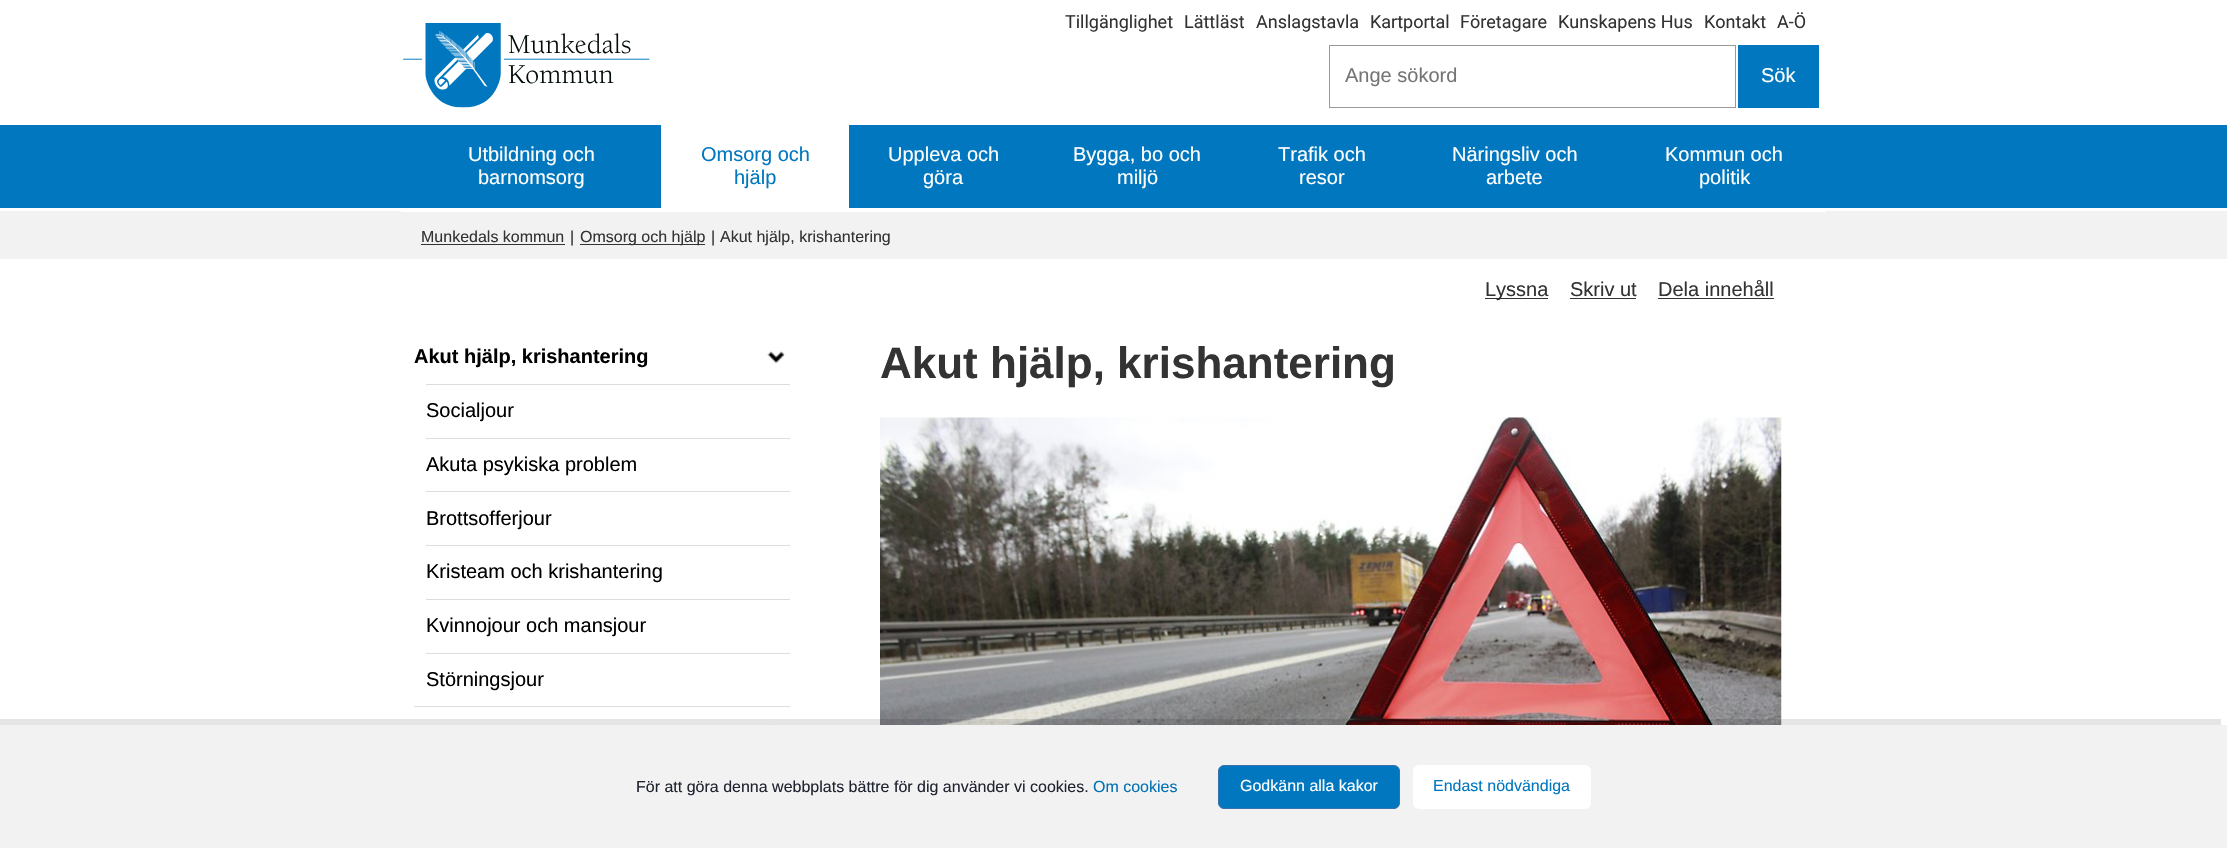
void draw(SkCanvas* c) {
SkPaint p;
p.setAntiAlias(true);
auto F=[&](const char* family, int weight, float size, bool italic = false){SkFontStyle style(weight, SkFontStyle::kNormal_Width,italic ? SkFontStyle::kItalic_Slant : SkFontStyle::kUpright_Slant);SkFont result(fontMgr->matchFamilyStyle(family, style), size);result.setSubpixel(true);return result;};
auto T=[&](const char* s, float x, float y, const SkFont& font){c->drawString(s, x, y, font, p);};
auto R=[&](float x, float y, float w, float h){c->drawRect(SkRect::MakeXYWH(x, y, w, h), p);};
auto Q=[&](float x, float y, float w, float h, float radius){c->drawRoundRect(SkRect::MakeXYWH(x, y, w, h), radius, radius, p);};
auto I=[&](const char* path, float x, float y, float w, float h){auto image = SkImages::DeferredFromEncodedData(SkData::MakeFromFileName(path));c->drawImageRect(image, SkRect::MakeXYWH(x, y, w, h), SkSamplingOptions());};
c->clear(0xffffffff);
I("1.png",403,23,247,85);
auto f1 = F("Roboto",400,18);
p.setColor(0xff333333);
T("Tillgänglighet",1065,28,f1);
T("Lättläst",1184,28,f1);
T("Anslagstavla",1256,28,f1);
T("Kartportal",1370,28,f1);
T("Företagare",1460,28,f1);
T("Kunskapens Hus",1558,28,f1);
T("Kontakt",1704,28,f1);
T("A-Ö",1777,28,f1);
p.setStroke(true);
p.setStrokeWidth(1);
p.setColor(0xff999999);
c->drawRect(SkRect::MakeXYWH(1329.5,45.5,406,62),p);
auto f2 = F("Liberation Sans",400,20);
p.setStroke(false);
p.setColor(0xff757575);
T("Ange sökord",1345,82,f2);
p.setColor(0xff0077be);
R(1738,45,81,63);
p.setColor(0xffffffff);
T("Sök",1761,82,f2);
p.setColor(0xff0077be);
R(0,125,2227,83);
p.setColor(0xffffffff);
T("Utbildning och",468,161,f2);
T("barnomsorg",478,184,f2);
R(661,125,188,83);
p.setColor(0xff0077be);
T("Omsorg och",701,161,f2);
T("hjälp",734,184,f2);
p.setColor(0xffffffff);
T("Uppleva och",888,161,f2);
T("göra",923,184,f2);
T("Bygga, bo och",1073,161,f2);
T("miljö",1117,184,f2);
T("Trafik och",1278,161,f2);
T("resor",1299,184,f2);
T("Näringsliv och",1452,161,f2);
T("arbete",1486,184,f2);
T("Kommun och",1665,161,f2);
T("politik",1699,184,f2);
p.setColor(0xfff2f2f2);
R(0,211,2227,48);
p.setColor(0xffffffff);
R(401,211,1425,1);
auto f3 = F("Liberation Sans",400,16);
p.setColor(0xff333333);
T("Munkedals kommun",421,242,f3);
R(421,244,144,1);
T("|",570,242,f3);
R(580,244,125,1);
T("Omsorg och hjälp",580,242,f3);
T("|",711,242,f3);
T("Akut hjälp, krishantering",720,242,f3);
R(1485,298,63,1);
T("Lyssna",1485,296,f2);
T("Skriv ut",1570,296,f2);
R(1570,298,66,1);
T("Dela innehåll",1658,296,f2);
R(1658,298,116,1);
auto f4 = F("Liberation Sans",700,44);
T("Akut hjälp, krishantering",880,378,f4);
I("2.png",880,417,902,308);
p.setColor(0xffdddddd);
R(414,706,376,1);
I("3.png",767,351,18,12);
auto f5 = F("Liberation Sans",700,20);
p.setColor(0xff000000);
T("Akut hjälp, krishantering",414,363,f5);
p.setColor(0xffdddddd);
R(426,384,364,1);
p.setColor(0xff000000);
T("Socialjour",426,417,f2);
p.setColor(0xffdddddd);
R(426,438,364,1);
p.setColor(0xff000000);
T("Akuta psykiska problem",426,471,f2);
p.setColor(0xffdddddd);
R(426,491,364,1);
p.setColor(0xff000000);
T("Brottsofferjour",426,525,f2);
p.setColor(0xffdddddd);
R(426,545,364,1);
p.setColor(0xff000000);
T("Kristeam och krishantering",426,578,f2);
p.setColor(0xffdddddd);
R(426,599,364,1);
p.setColor(0xff000000);
T("Kvinnojour och mansjour",426,632,f2);
p.setColor(0xffdddddd);
R(426,653,364,1);
p.setColor(0xff000000);
T("Störningsjour",426,686,f2);
I("4.png",769,724,13,1);
p.setColor(0xfff2f2f2);
R(0,725,2227,123);
p.setColor(0x1a000000);
R(0,719,2221,6);
p.setColor(0xff202330);
T("För att göra denna webbplats bättre för dig använder vi cookies.",636,792,f3);
p.setColor(0xff0071b3);
T("Om cookies",1093,792,f3);
p.setColor(0xff0077be);
c->drawRoundRect(SkRect::MakeXYWH(1218.5,765.5,181,43),5.5,5.5,p);
p.setStroke(true);
p.setColor(0xff3a71aa);
c->drawRoundRect(SkRect::MakeXYWH(1218.5,765.5,181,43),5.5,5.5,p);
p.setStroke(false);
p.setColor(0xffffffff);
T("Godkänn alla kakor",1240,791,f3);
Q(1413,765,178,44,6);
p.setColor(0xff0077be);
T("Endast nödvändiga",1433,791,f3);
}
